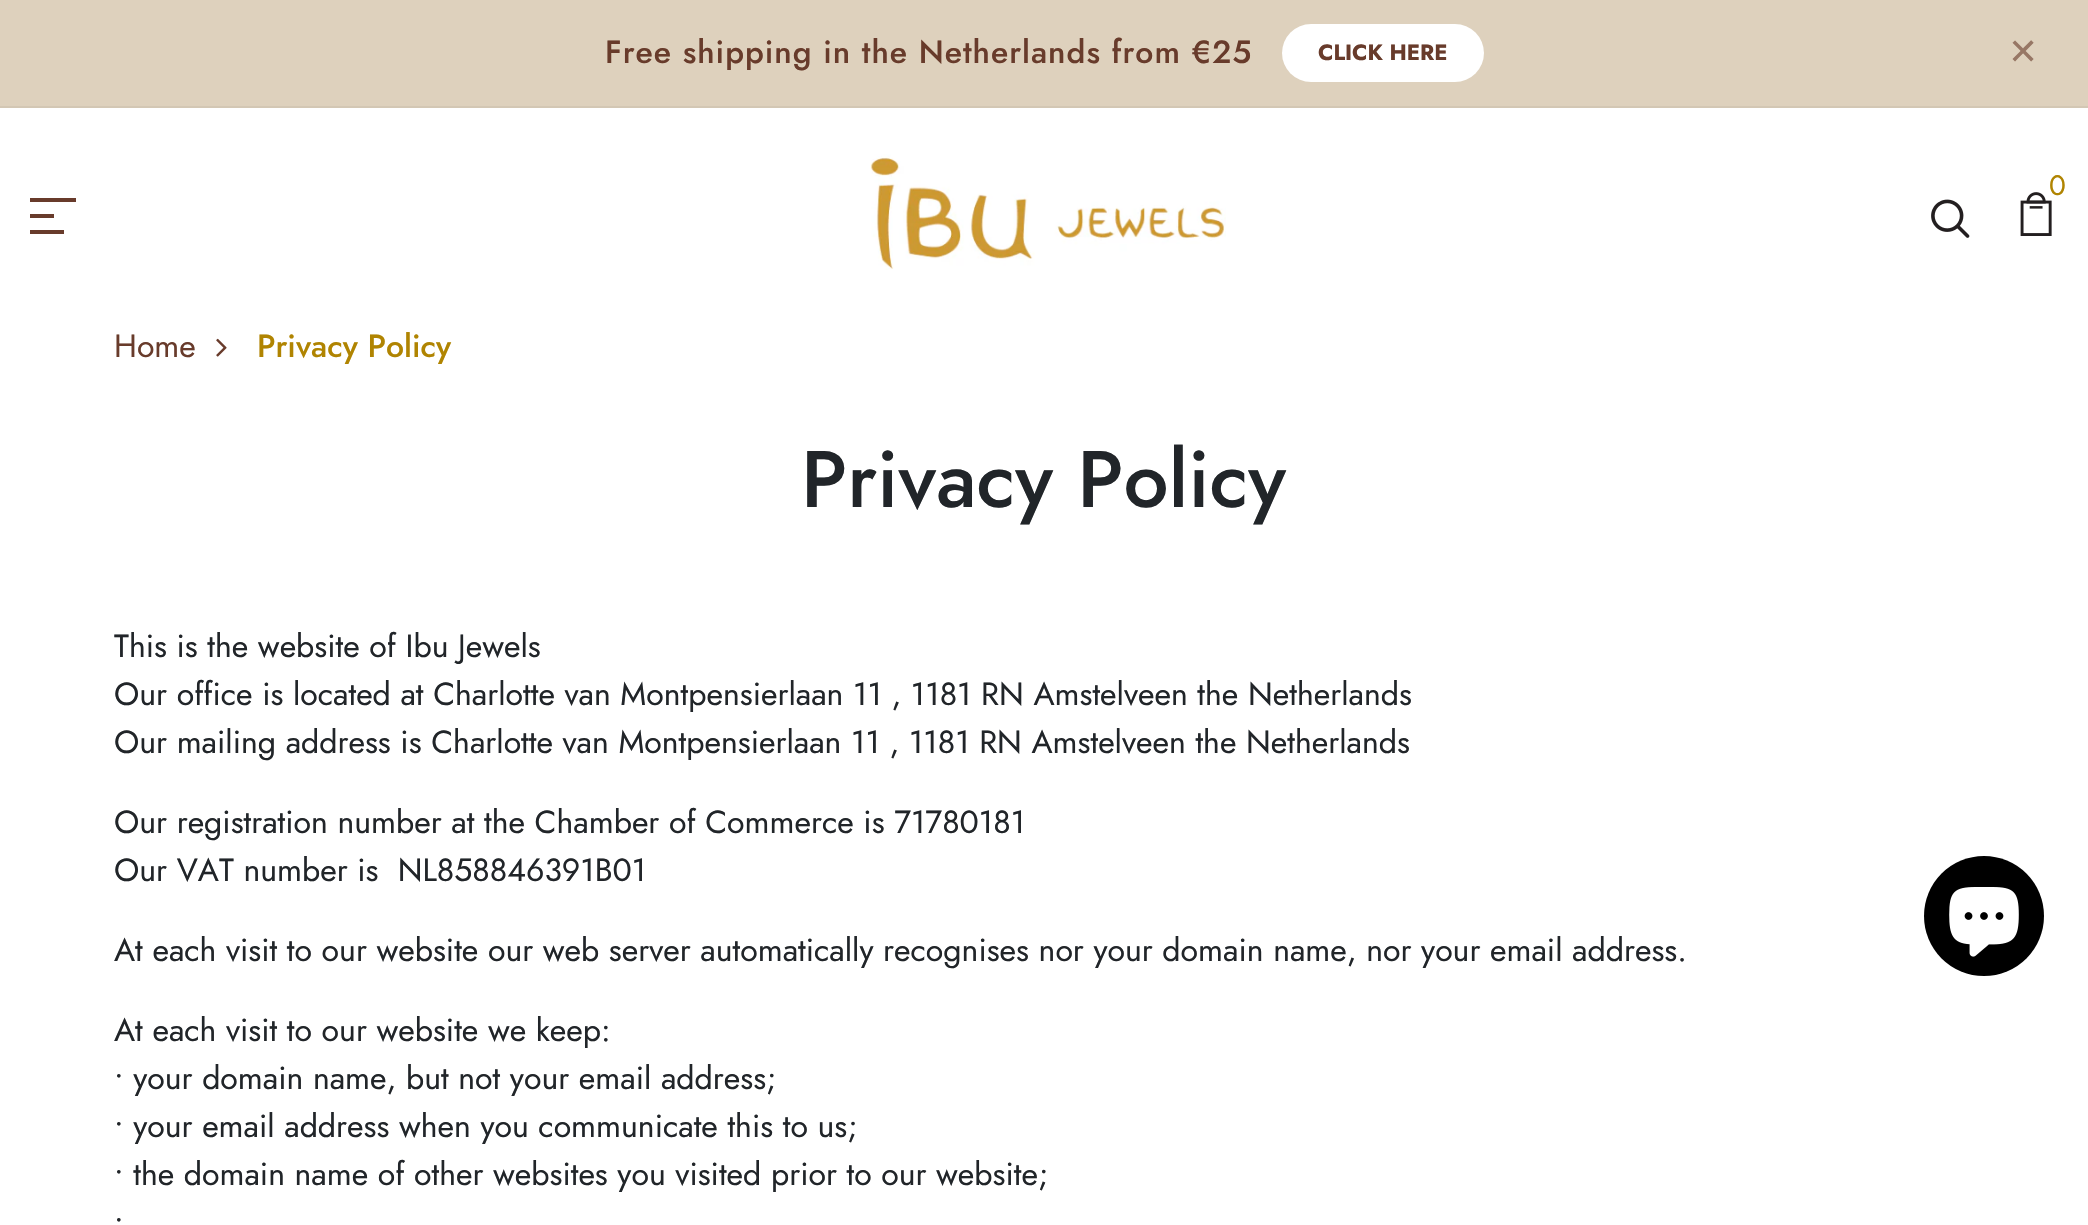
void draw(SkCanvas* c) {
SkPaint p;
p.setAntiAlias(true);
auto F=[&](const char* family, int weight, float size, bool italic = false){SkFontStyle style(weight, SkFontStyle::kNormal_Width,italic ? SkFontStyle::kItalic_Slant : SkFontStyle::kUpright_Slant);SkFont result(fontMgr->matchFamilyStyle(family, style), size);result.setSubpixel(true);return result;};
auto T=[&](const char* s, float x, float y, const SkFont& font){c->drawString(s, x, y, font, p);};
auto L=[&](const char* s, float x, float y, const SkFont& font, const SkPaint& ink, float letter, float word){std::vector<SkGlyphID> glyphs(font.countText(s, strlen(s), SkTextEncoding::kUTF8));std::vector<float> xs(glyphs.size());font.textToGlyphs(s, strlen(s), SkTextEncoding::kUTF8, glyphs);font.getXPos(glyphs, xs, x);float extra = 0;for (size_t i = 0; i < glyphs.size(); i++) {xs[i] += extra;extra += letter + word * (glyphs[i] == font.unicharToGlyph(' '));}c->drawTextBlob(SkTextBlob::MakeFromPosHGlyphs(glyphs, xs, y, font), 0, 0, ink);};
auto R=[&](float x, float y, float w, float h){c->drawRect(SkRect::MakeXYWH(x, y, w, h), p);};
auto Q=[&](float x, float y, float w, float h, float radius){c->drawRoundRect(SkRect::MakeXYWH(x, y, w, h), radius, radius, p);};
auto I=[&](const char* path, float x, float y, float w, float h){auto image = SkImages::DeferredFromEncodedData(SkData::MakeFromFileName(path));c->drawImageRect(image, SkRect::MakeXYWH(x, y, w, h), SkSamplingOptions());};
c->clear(0xffffffff);
p.setColor(0xffded1bd);
R(0,0,2088,106);
p.setColor(0xffd3c7b4);
R(0,106,2088,2);
auto f1 = F("Jost",500,32);
p.setColor(0xff683b2b);
L("Free shipping in the Netherlands from €25",605,63,f1,p,1,0);
p.setColor(0xffffffff);
Q(1282,24,202,58,29);
auto f2 = F("Jost",700,22);
p.setColor(0xff683b2b);
T("CLICK HERE",1318,60,f2);
auto f3 = F("DejaVu Sans",400,36);
p.setColor(0xff977765);
T("✕",2008,64,f3);
I("1.png",870,154,356,116);
I("2.png",2020,192,32,44);
auto f4 = F("Jost",400,28);
p.setColor(0xffb08401);
T("0",2049,195,f4);
I("3.png",1931,199,39,39);
p.setColor(0xff683b2b);
R(30,198,46,4);
R(30,214,24,4);
R(30,230,34,4);
auto f5 = F("Jost",400,32);
T("Home",114,357,f5);
I("4.png",216,338,11,19);
p.setColor(0xffb08401);
T("Privacy Policy",257,357,f1);
auto f6 = F("Jost",500,80);
p.setColor(0xff212529);
T("Privacy Policy",801,507,f6);
T("This is the website of Ibu Jewels",114,657,f5);
T("Our office is located at Charlotte van Montpensierlaan 11 , 1181 RN Amstelveen the Netherlands",114,705,f5);
T("Our mailing address is Charlotte van Montpensierlaan 11 , 1181 RN Amstelveen the Netherlands",114,753,f5);
T("Our registration number at the Chamber of Commerce is 71780181",114,833,f5);
T("Our VAT number is  NL858846391B01",114,881,f5);
T("At each visit to our website our web server automatically recognises nor your domain name, nor your email address.",114,961,f5);
T("At each visit to our website we keep:",114,1041,f5);
T("• your domain name, but not your email address;",114,1089,f5);
T("• your email address when you communicate this to us;",114,1137,f5);
T("• the domain name of other websites you visited prior to our website;",114,1185,f5);
T("•",114,1233,f5);
p.setColor(0xff000000);
c->drawCircle(1984,916,60,p);
I("5.png",1949,887,70,70);
}
